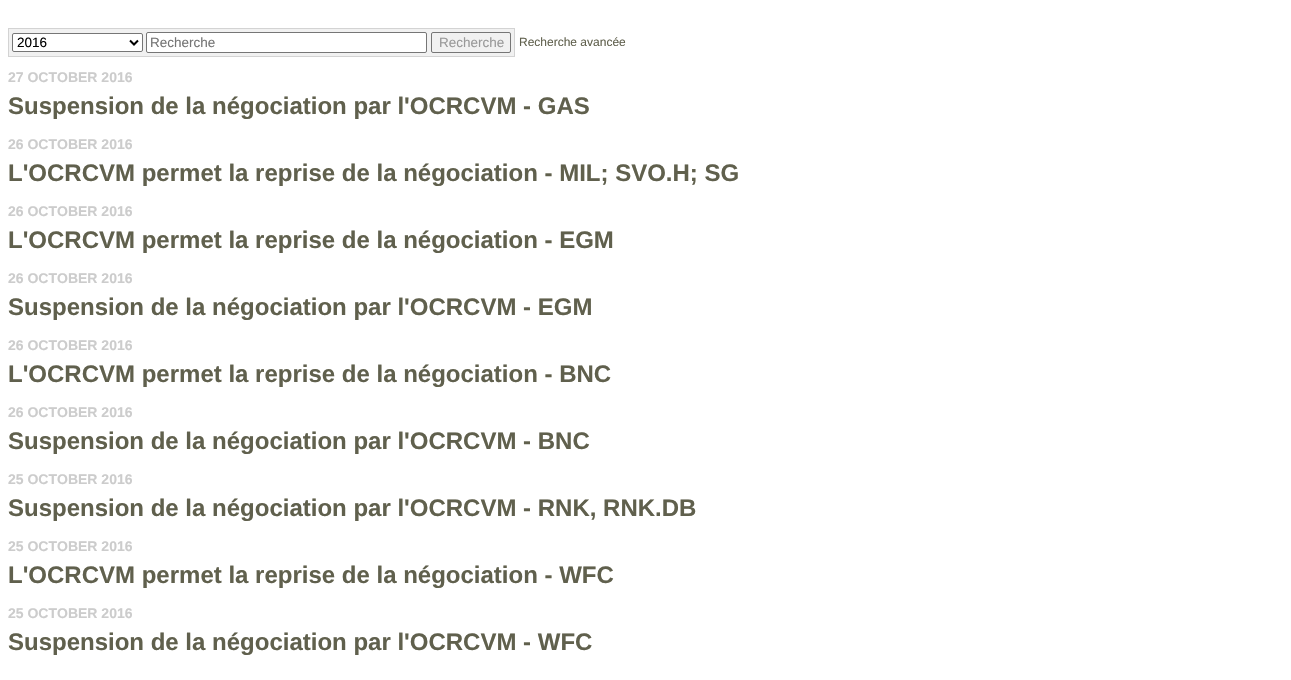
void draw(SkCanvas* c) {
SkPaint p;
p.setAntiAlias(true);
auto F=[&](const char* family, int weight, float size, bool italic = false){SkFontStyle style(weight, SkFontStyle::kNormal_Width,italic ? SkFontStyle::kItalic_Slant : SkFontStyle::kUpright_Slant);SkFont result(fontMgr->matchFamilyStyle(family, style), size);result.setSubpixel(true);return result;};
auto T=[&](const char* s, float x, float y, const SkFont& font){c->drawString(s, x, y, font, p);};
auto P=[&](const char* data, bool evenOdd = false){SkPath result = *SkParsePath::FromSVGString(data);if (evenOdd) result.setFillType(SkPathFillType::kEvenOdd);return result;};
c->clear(0xffffffff);
p.setColor(0xfff1f1f1);
c->drawRect(SkRect::MakeXYWH(8.5,28.5,506,28),p);
p.setStroke(true);
p.setStrokeWidth(1);
p.setColor(0xffd3d3d3);
c->drawRect(SkRect::MakeXYWH(8.5,28.5,506,28),p);
p.setStroke(false);
p.setColor(0xffffffff);
c->drawRoundRect(SkRect::MakeXYWH(12.5,33.5,130,18),1.5,1.5,p);
p.setStroke(true);
p.setColor(0xff767676);
c->drawRoundRect(SkRect::MakeXYWH(12.5,33.5,130,18),1.5,1.5,p);
p.setStrokeWidth(2);
p.setColor(0xff000000);
c->drawPath(P("M130 40.5l4 4l4-4"),p);
auto f1 = F("Liberation Sans",400,13.5);
p.setStroke(false);
T("2016",17,47,f1);
p.setColor(0xffffffff);
c->drawRoundRect(SkRect::MakeXYWH(146.5,32.5,280,20),1.5,1.5,p);
p.setStroke(true);
p.setStrokeWidth(1);
p.setColor(0xff767676);
c->drawRoundRect(SkRect::MakeXYWH(146.5,32.5,280,20),1.5,1.5,p);
p.setStroke(false);
p.setColor(0xff757575);
T("Recherche",150,47,f1);
p.setStroke(true);
p.setColor(0xff767676);
c->drawRoundRect(SkRect::MakeXYWH(431.5,32.5,79,20),1.5,1.5,p);
p.setStroke(false);
p.setColor(0xff999999);
T("Recherche",439,47,f1);
auto f2 = F("Liberation Sans",400,12);
p.setColor(0xff60604d);
T("Recherche avancée",519,46,f2);
auto f3 = F("Liberation Sans",700,14);
p.setColor(0xffcccccc);
T("27 OCTOBER 2016",8,82,f3);
auto f4 = F("Liberation Sans",700,24);
p.setColor(0xff60604d);
T("Suspension de la négociation par l'OCRCVM - GAS",8,114,f4);
p.setColor(0xffcccccc);
T("26 OCTOBER 2016",8,149,f3);
p.setColor(0xff60604d);
T("L'OCRCVM permet la reprise de la négociation - MIL; SVO.H; SG",8,181,f4);
p.setColor(0xffcccccc);
T("26 OCTOBER 2016",8,216,f3);
p.setColor(0xff60604d);
T("L'OCRCVM permet la reprise de la négociation - EGM",8,248,f4);
p.setColor(0xffcccccc);
T("26 OCTOBER 2016",8,283,f3);
p.setColor(0xff60604d);
T("Suspension de la négociation par l'OCRCVM - EGM",8,315,f4);
p.setColor(0xffcccccc);
T("26 OCTOBER 2016",8,350,f3);
p.setColor(0xff60604d);
T("L'OCRCVM permet la reprise de la négociation - BNC",8,382,f4);
p.setColor(0xffcccccc);
T("26 OCTOBER 2016",8,417,f3);
p.setColor(0xff60604d);
T("Suspension de la négociation par l'OCRCVM - BNC",8,449,f4);
p.setColor(0xffcccccc);
T("25 OCTOBER 2016",8,484,f3);
p.setColor(0xff60604d);
T("Suspension de la négociation par l'OCRCVM - RNK, RNK.DB",8,516,f4);
p.setColor(0xffcccccc);
T("25 OCTOBER 2016",8,551,f3);
p.setColor(0xff60604d);
T("L'OCRCVM permet la reprise de la négociation - WFC",8,583,f4);
p.setColor(0xffcccccc);
T("25 OCTOBER 2016",8,618,f3);
p.setColor(0xff60604d);
T("Suspension de la négociation par l'OCRCVM - WFC",8,650,f4);
}
